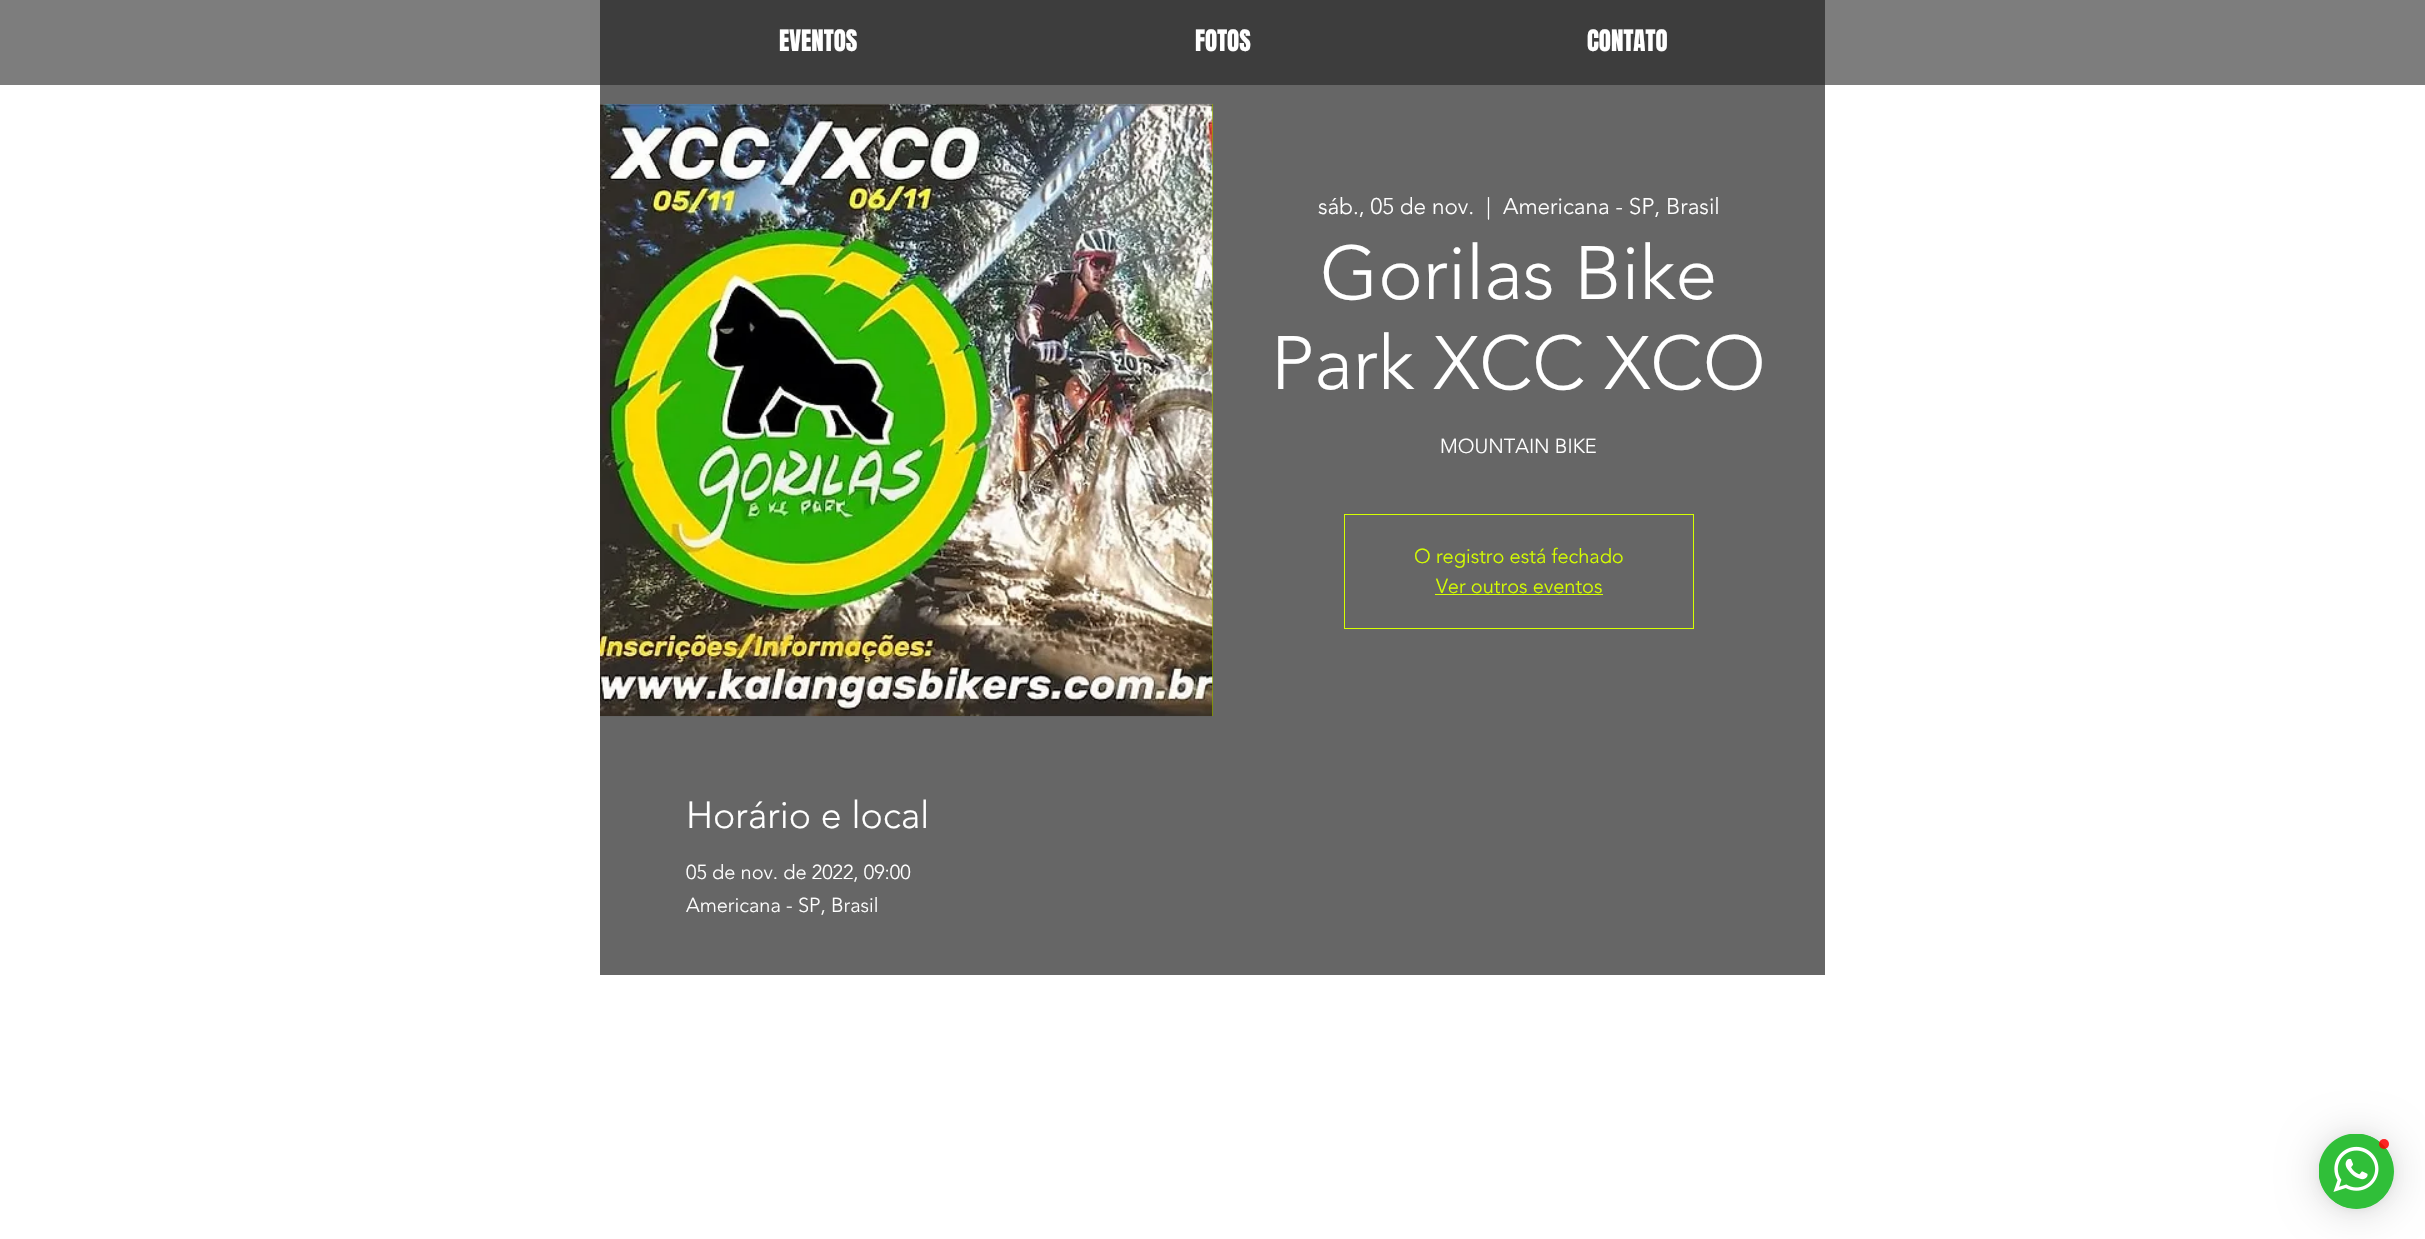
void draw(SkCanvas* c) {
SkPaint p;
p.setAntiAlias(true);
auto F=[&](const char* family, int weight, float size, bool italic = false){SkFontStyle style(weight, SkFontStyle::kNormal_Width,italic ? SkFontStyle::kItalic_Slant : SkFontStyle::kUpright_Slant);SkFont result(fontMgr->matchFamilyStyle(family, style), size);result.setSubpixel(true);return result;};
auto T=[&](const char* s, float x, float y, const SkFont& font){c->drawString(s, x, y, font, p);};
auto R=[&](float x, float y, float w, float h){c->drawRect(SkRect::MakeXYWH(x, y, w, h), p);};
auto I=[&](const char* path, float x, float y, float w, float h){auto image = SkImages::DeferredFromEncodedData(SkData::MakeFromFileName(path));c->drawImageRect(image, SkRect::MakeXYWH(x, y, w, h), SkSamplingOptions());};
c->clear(0xffffffff);
p.setColor(0xff7d7d7d);
R(0,0,2425,85);
p.setColor(0xff3d3d3d);
R(600,0,1225,85);
auto f1 = F("Anton",400,25);
p.setColor(0xffffffff);
T("EVENTOS",779,51,f1);
T("FOTOS",1195,51,f1);
T("CONTATO",1587,51,f1);
p.setColor(0xff666666);
R(600,85,1225,890);
p.setColor(0xff8faa00);
R(1212,104,1,612);
I("1.png",600,103,613,614);
auto f2 = F("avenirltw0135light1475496",300,22.5);
p.setColor(0xffffffff);
T("sáb., 05 de nov.",1318,214,f2);
T("|",1486,214,f2);
T("Americana - SP, Brasil",1503,214,f2);
auto f3 = F("avenirltw0135light1475496",300,75);
T("Gorilas Bike",1320,299,f3);
T("Park XCC XCO",1271,389,f3);
auto f4 = F("avenirltw0135light1475496",300,20);
T("MOUNTAIN BIKE",1440,453,f4);
p.setStroke(true);
p.setStrokeWidth(1);
p.setColor(0xffd6ff00);
c->drawRect(SkRect::MakeXYWH(1344.5,514.5,349,114),p);
p.setStroke(false);
T("O registro está fechado",1414,563,f4);
T("Ver outros eventos",1436,593,f4);
R(1435,594,168,1);
auto f5 = F("avenirltw0135light1475496",300,37.5);
p.setColor(0xffffffff);
T("Horário e local",686,828,f5);
T("05 de nov. de 2022, 09:00",686,879,f4);
T("Americana - SP, Brasil",686,912,f4);
p.setColor(0x29000000);
p.setMaskFilter(SkMaskFilter::MakeBlur(kNormal_SkBlurStyle, 20));
c->drawRoundRect(SkRect::MakeXYWH(2319,1136,75,75),37.5,37.5,p);
p.setMaskFilter(nullptr);
p.setColor(0x0f000000);
p.setMaskFilter(SkMaskFilter::MakeBlur(kNormal_SkBlurStyle, 4));
c->drawRoundRect(SkRect::MakeXYWH(2319,1135,75,75),37.5,37.5,p);
p.setMaskFilter(nullptr);
p.setColor(0xff30bf39);
c->drawCircle(2356.5,1171.5,37.5,p);
I("2.png",2319,1134,75,75);
p.setColor(0xd9ff0000);
c->drawCircle(2384,1144,5,p);
}
